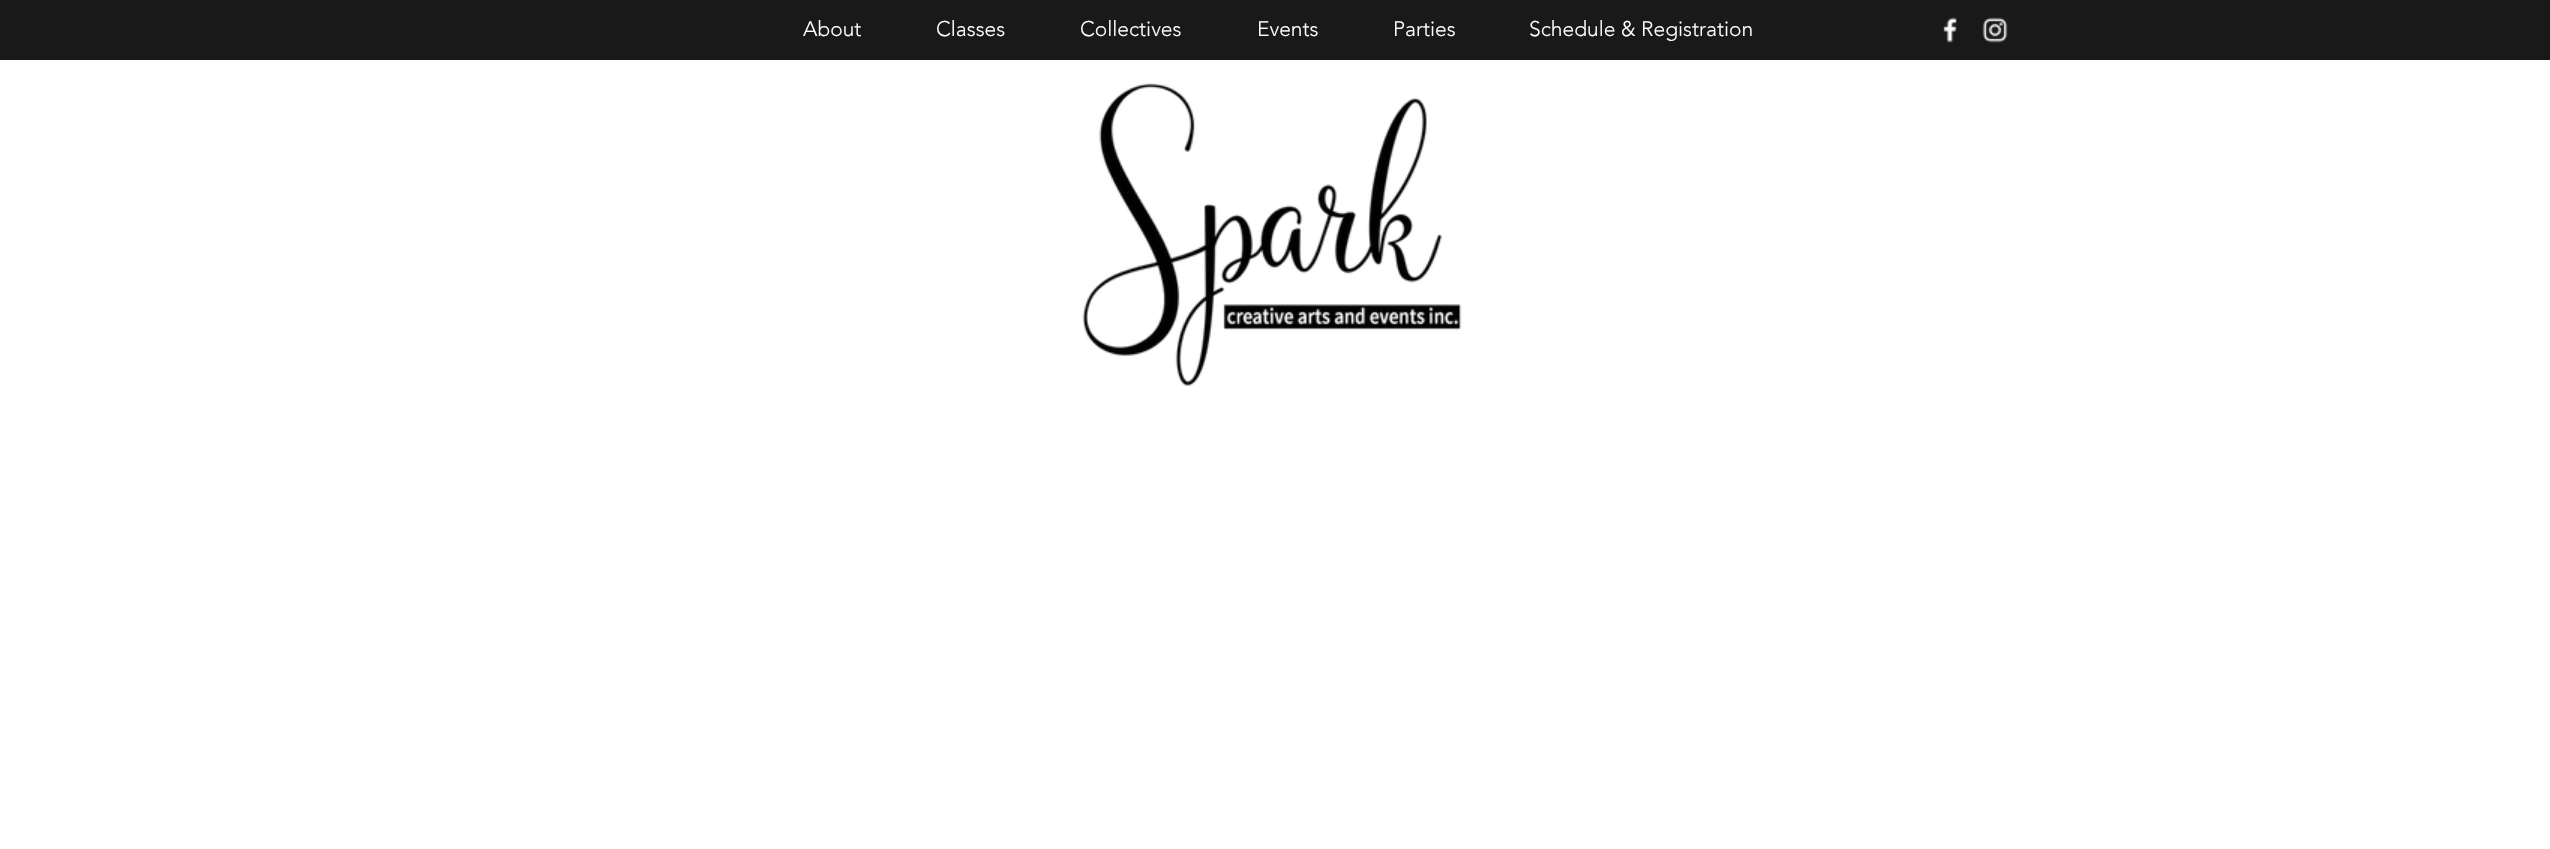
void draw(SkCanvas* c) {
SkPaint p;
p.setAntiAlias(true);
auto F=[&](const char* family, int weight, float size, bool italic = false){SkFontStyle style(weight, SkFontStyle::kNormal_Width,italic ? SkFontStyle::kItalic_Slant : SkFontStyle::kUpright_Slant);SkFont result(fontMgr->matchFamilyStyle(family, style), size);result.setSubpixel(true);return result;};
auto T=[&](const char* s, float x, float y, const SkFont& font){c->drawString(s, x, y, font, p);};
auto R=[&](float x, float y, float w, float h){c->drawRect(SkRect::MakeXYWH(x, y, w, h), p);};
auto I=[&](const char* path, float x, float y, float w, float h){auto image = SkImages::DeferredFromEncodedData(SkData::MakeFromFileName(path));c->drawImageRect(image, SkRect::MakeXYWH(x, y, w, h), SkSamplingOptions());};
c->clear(0xffffffff);
p.setColor(0xff191919);
R(0,0,2550,60);
auto f1 = F("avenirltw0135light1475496",300,21);
p.setColor(0xffffffff);
T("About",803,36,f1);
T("Classes",936,36,f1);
T("Collectives",1080,36,f1);
T("Events",1257,36,f1);
T("Parties",1393,36,f1);
T("Schedule & Registration",1529,36,f1);
I("1.png",1943,17,14,26);
I("2.png",1982,17,26,26);
I("3.png",1082,83,380,303);
}
